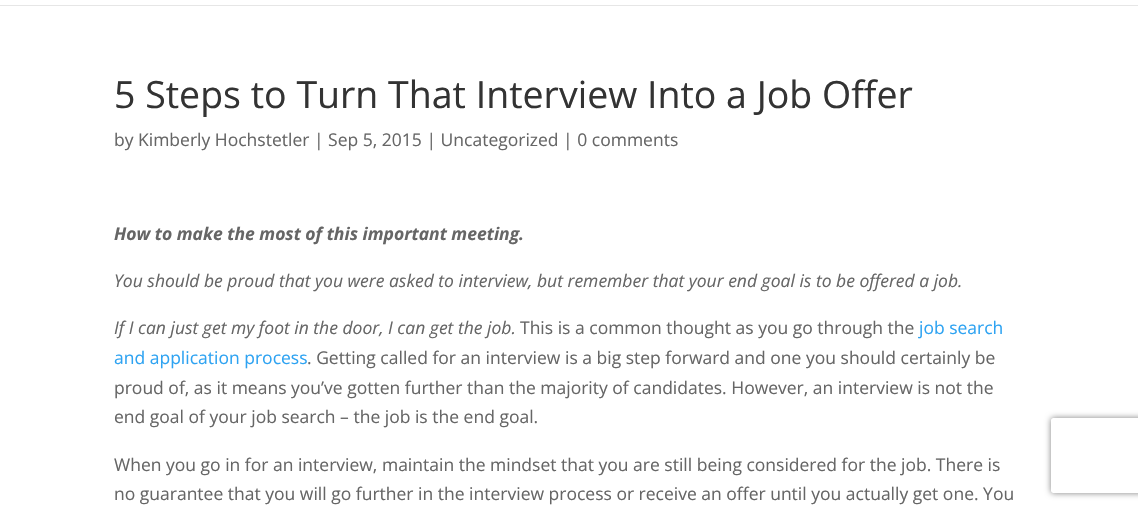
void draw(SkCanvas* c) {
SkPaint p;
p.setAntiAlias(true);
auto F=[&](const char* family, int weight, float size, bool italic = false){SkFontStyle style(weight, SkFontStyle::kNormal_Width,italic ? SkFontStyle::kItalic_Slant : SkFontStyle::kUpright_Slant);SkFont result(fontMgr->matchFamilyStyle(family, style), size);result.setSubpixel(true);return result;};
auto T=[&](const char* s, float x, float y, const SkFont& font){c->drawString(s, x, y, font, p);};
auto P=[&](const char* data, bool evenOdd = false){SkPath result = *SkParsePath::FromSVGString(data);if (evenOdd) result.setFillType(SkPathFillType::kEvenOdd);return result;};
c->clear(0xffffffff);
p.setColor(0xffe6e6e6);
c->drawPath(P("M0 5v1h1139v-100v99z"),p);
auto f1 = F("Open Sans",400,37.5);
p.setColor(0xff333333);
T("5 Steps to Turn That Interview Into a Job Offer",114,108,f1);
auto f2 = F("Open Sans",400,17.5);
p.setColor(0xff666666);
T("by Kimberly Hochstetler | Sep 5, 2015 | Uncategorized | 0 comments",114,146,f2);
auto f3 = F("Open Sans",700,17.5,true);
T("How to make the most of this important meeting.",114,240,f3);
auto f4 = F("Open Sans",400,17.5,true);
T("You should be proud that you were asked to interview, but remember that your end goal is to be offered a job.",114,287,f4);
T("If I can just get my foot in the door, I can get the job.",114,334,f4);
T("This is a common thought as you go through the",520,334,f2);
p.setColor(0xff2ea3f2);
T("job search",919,334,f2);
T("and application process",114,364,f2);
p.setColor(0xff666666);
T(". Getting called for an interview is a big step forward and one you should certainly be",307,364,f2);
T("proud of, as it means you’ve gotten further than the majority of candidates. However, an interview is not the",114,394,f2);
T("end goal of your job search – the job is the end goal.",114,423,f2);
T("When you go in for an interview, maintain the mindset that you are still being considered for the job. There is",114,471,f2);
T("no guarantee that you will go further in the interview process or receive an offer until you actually get one. You",114,500,f2);
c->save();
c->clipPath(P("M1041 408h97v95h-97zm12.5 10h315c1.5 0 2.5 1 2.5 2.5v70c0 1.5-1 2.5-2.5 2.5h-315c-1.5 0-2.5-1-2.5-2.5v-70c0-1.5 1-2.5 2.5-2.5z",true),true);
p.setColor(0xff808080);
p.setMaskFilter(SkMaskFilter::MakeBlur(kNormal_SkBlurStyle, 3));
c->drawRoundRect(SkRect::MakeXYWH(1051,418,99,75),2.5,2.5,p);
p.setMaskFilter(nullptr);
c->restore();
}
